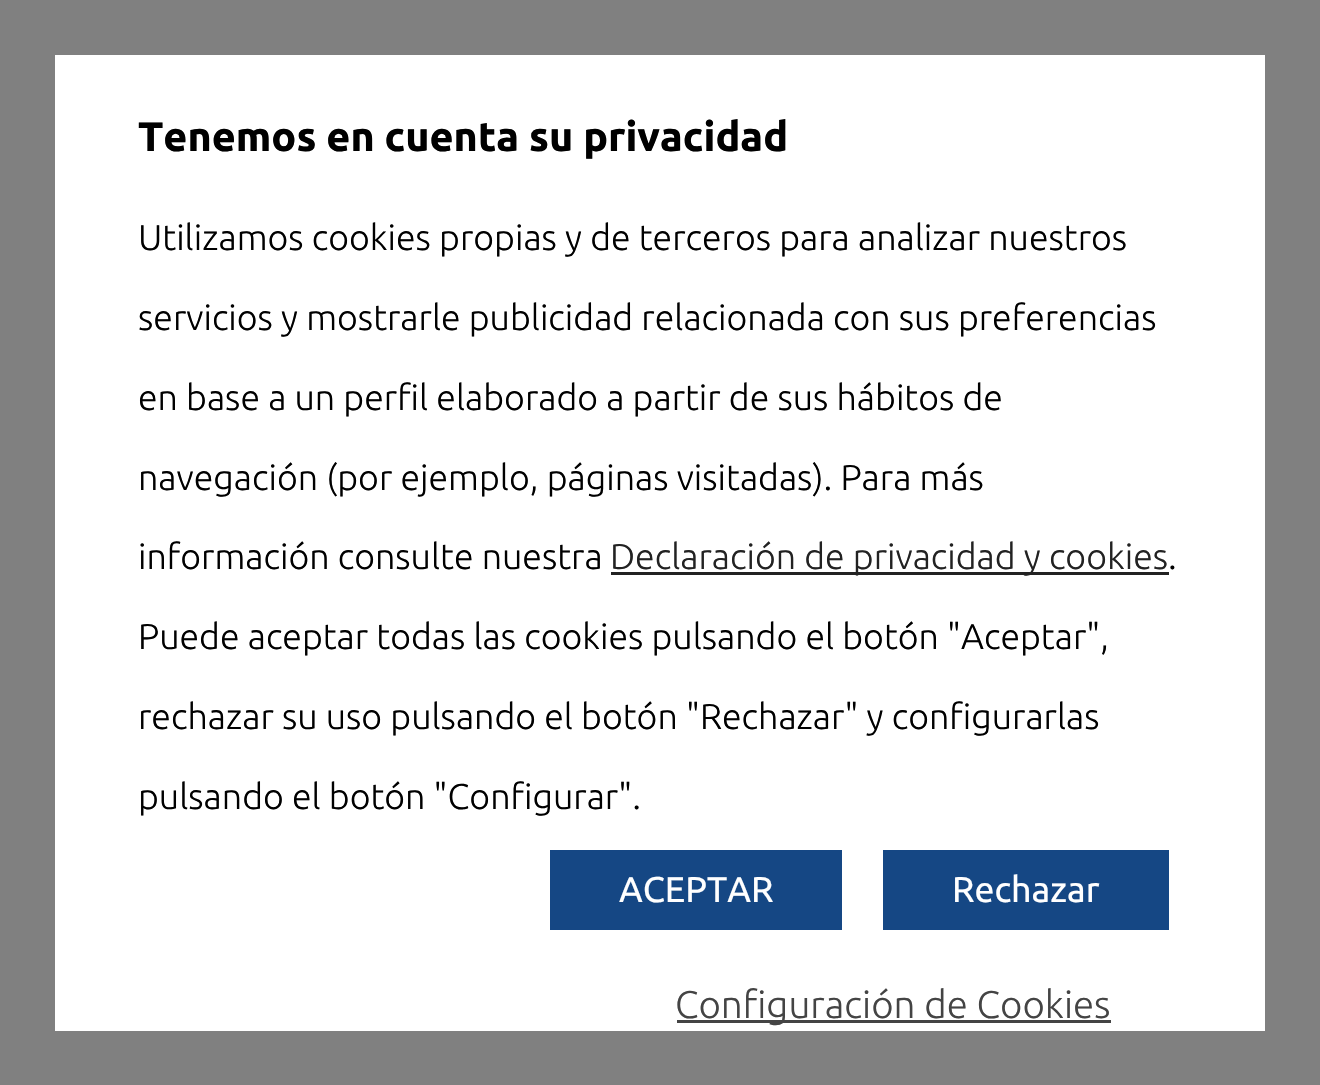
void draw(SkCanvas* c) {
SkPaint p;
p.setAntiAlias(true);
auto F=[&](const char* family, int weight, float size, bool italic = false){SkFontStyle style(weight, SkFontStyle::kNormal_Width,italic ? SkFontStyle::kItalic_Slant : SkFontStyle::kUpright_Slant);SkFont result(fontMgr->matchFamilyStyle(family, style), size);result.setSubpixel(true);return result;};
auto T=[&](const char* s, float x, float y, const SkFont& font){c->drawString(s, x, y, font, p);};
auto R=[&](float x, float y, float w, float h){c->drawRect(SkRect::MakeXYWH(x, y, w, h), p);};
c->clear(0xffffffff);
p.setStroke(true);
p.setStrokeWidth(55);
p.setColor(0xff808080);
c->drawRect(SkRect::MakeXYWH(27.5,27.5,1265,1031),p);
auto f1 = F("Ubuntu",700,41.25);
p.setStroke(false);
p.setColor(0xff000000);
T("Tenemos en cuenta su privacidad",138,151,f1);
auto f2 = F("Ubuntu",300,35.75);
T("Utilizamos cookies propias y de terceros para analizar nuestros",138,250,f2);
T("servicios y mostrarle publicidad relacionada con sus preferencias",138,330,f2);
T("en base a un perfil elaborado a partir de sus hábitos de",138,410,f2);
T("navegación (por ejemplo, páginas visitadas). Para más",138,490,f2);
T("información consulte nuestra",138,569,f2);
p.setColor(0xff222222);
R(611,572,558,3);
T("Declaración de privacidad y cookies",610,569,f2);
p.setColor(0xff000000);
T(".",1168,569,f2);
T("Puede aceptar todas las cookies pulsando el botón \"Aceptar\",",138,649,f2);
T("rechazar su uso pulsando el botón \"Rechazar\" y configurarlas",138,729,f2);
T("pulsando el botón \"Configurar\".",138,809,f2);
p.setColor(0xff154784);
R(550,850,292,80);
auto f3 = F("Ubuntu",400,35.75);
p.setColor(0xffffffff);
T("ACEPTAR",619,902,f3);
p.setColor(0xff154784);
R(883,850,286,80);
p.setColor(0xffffffff);
T("Rechazar",952,902,f3);
p.setColor(0xff444444);
R(677,1020,434,3);
auto f4 = F("Ubuntu",300,38.5);
T("Configuración de Cookies",675,1018,f4);
}
